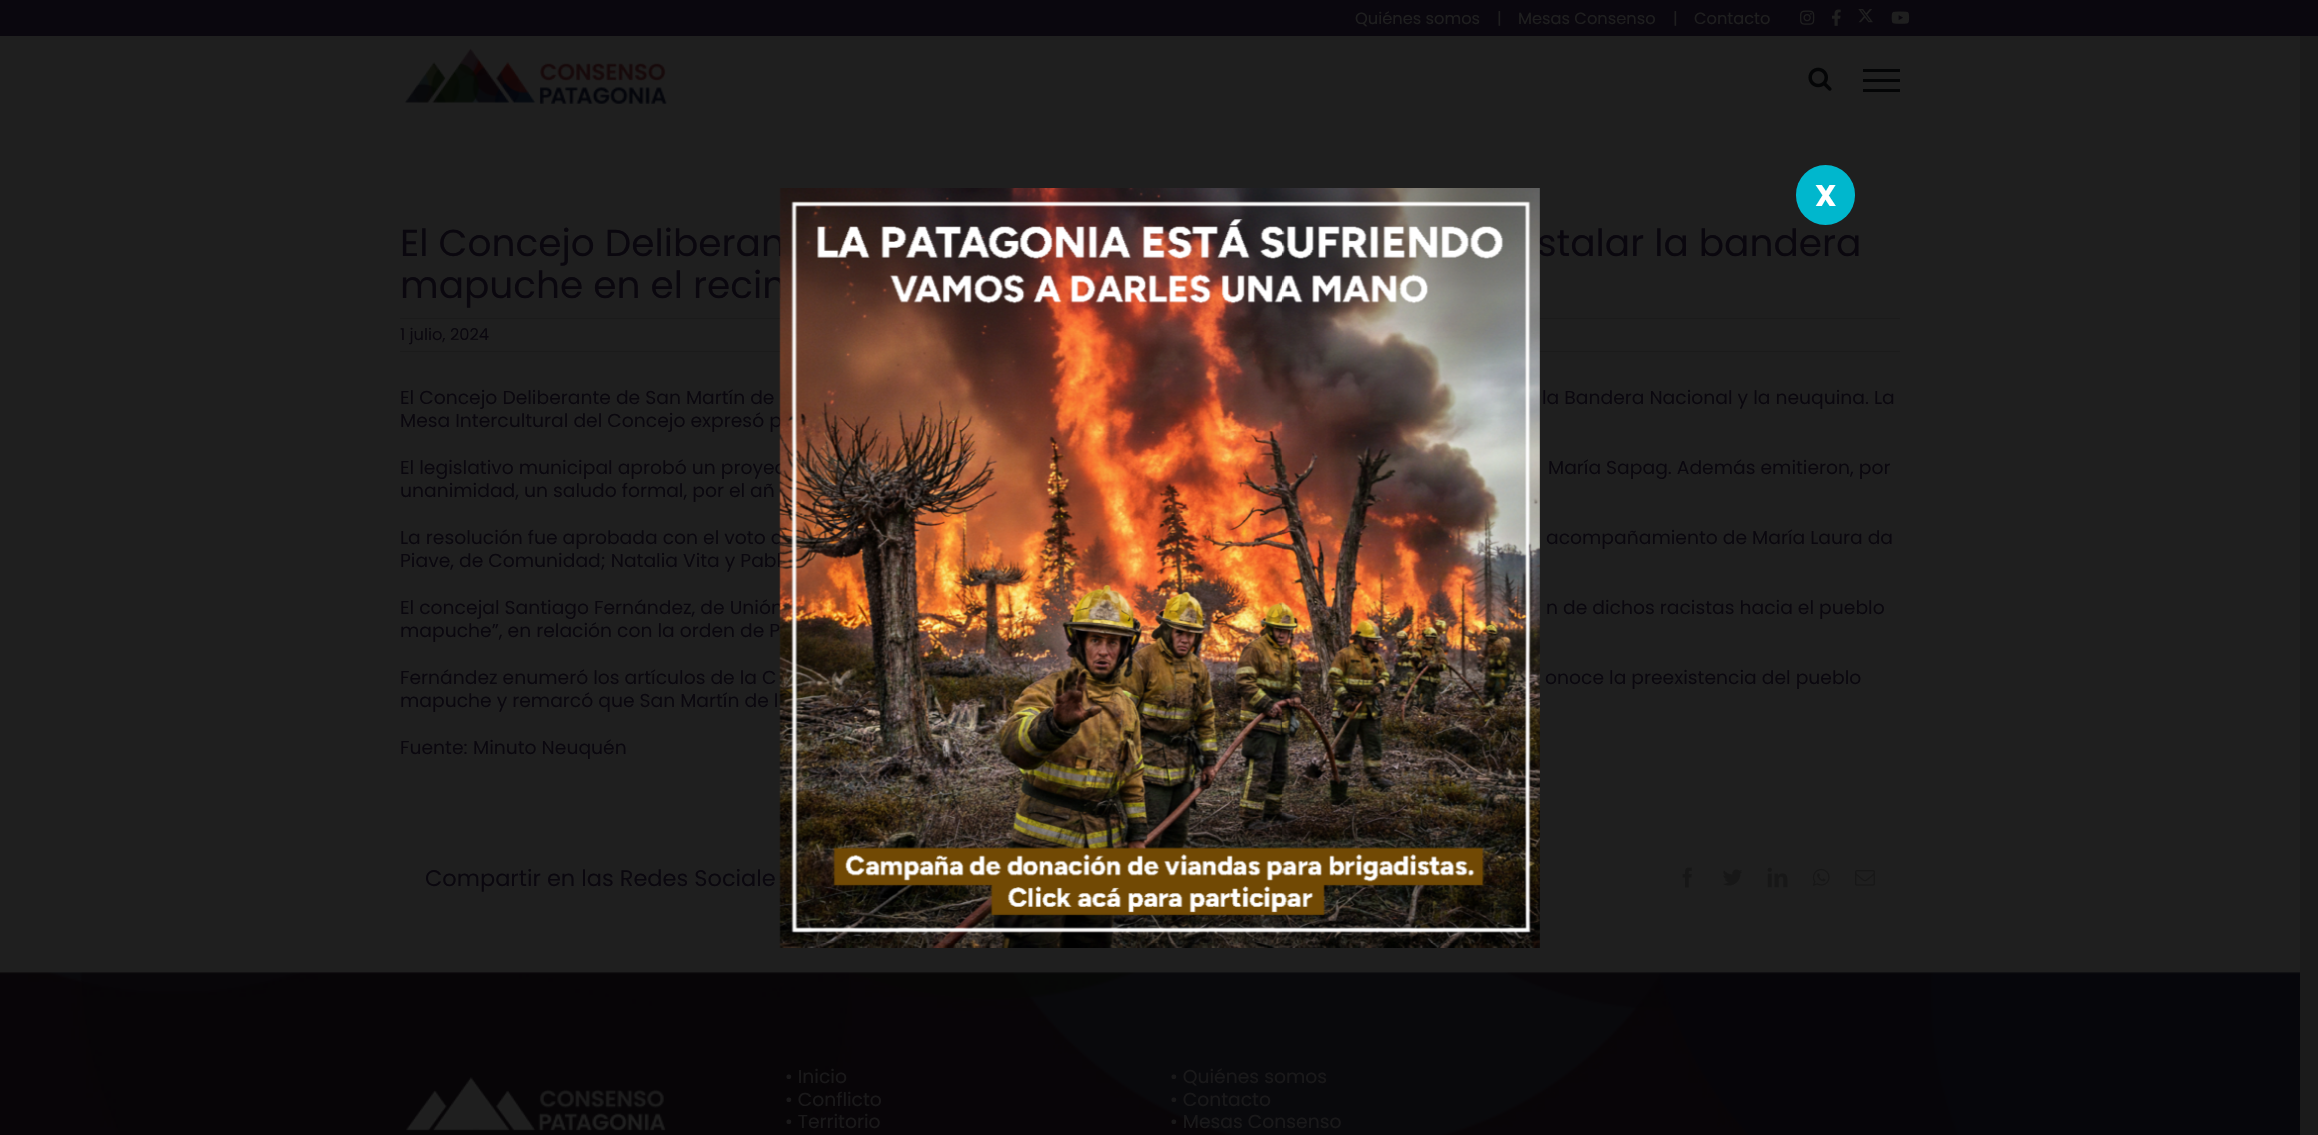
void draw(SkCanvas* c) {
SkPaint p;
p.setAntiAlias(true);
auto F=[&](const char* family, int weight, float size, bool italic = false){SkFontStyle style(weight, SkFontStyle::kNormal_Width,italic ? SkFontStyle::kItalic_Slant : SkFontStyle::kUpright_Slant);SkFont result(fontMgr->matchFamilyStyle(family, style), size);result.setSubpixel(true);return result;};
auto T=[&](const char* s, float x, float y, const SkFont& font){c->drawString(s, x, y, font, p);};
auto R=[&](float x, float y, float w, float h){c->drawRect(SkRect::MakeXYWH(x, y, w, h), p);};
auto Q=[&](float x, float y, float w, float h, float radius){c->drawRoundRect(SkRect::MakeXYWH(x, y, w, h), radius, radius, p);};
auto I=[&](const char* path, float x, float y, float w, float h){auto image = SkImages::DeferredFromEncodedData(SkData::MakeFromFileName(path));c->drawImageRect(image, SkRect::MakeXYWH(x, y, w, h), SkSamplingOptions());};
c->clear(0xff1b1b1b);
p.setColor(0xff0a070e);
R(0,0,2318,36);
auto f1 = F("Poppins",400,16.25);
p.setColor(0xff1f1f1f);
T("Quiénes somos",1355,24,f1);
T("|",1497,24,f1);
T("Mesas Consenso",1518,24,f1);
T("|",1673,24,f1);
T("Contacto",1694,24,f1);
I("1.png",1800,10,15,15);
I("2.png",1832,9,9,17);
I("3.png",1858,9,15,14);
I("4.png",1891,11,19,13);
R(0,36,2300,938);
auto f2 = F("Poppins",400,37.5);
p.setColor(0xff0a070e);
T("El Concejo Deliberan",400,256,f2);
T("stalar la bandera",1537,256,f2);
T("mapuche en el recin",400,298,f2);
p.setColor(0xff1b1b1b);
R(400,318,1500,1);
R(400,351,1500,1);
auto f3 = F("Poppins",400,18.75);
p.setColor(0xff0a070e);
T("Mesa Intercultural del Concejo expresó p",400,427,f3);
T("El legislativo municipal aprobó un proyec",400,474,f3);
T("La resolución fue aprobada con el voto d",400,544,f3);
T("Piave, de Comunidad; Natalia Vita y Pabl",400,567,f3);
T("El concejal Santiago Fernández, de Unión",400,614,f3);
T("mapuche”, en relación con la orden de P",400,637,f3);
I("5.png",779,188,761,760);
p.setColor(0xff00b7cd);
Q(1796,165,59,60,29.5);
auto f4 = F("Poppins",700,30);
p.setColor(0xffffffff);
T("X",1815,206,f4);
I("6.png",405,48,262,56);
I("7.png",1808,67,24,24);
p.setColor(0xff040506);
R(1863,69,37,3);
R(1863,79,37,3);
R(1863,89,37,3);
p.setColor(0xff0a070e);
T("1 julio, 2024",400,340,f1);
T("El Concejo Deliberante de San Martín de",400,404,f3);
T("la Bandera Nacional y la neuquina. La",1542,404,f3);
T("María Sapag. Además emitieron, por",1548,474,f3);
T("unanimidad, un saludo formal, por el añ",400,497,f3);
T("acompañamiento de María Laura da",1546,544,f3);
T("n de dichos racistas hacia el pueblo",1546,614,f3);
T("Fernández enumeró los artículos de la C",400,684,f3);
T("onoce la preexistencia del pueblo",1545,684,f3);
T("mapuche y remarcó que San Martín de l",400,707,f3);
T("Fuente:",400,754,f3);
T("Minuto Neuquén",473,754,f3);
auto f5 = F("Poppins",400,22.5);
T("Compartir en las Redes Sociale",425,886,f5);
I("8.png",1682,867,10,21);
I("9.png",1723,869,20,17);
I("10.png",1767,867,21,21);
I("11.png",1812,868,18,18);
I("12.png",1855,870,20,16);
I("13.png",0,972,2300,163);
I("14.png",406,1077,260,54);
p.setColor(0xff1a191a);
T("• Inicio",785,1083,f3);
T("• Conflicto",785,1106,f3);
T("• Territorio",785,1128,f3);
T("• Quiénes somos",1170,1083,f3);
T("• Contacto",1170,1106,f3);
T("• Mesas Consenso",1170,1128,f3);
}
